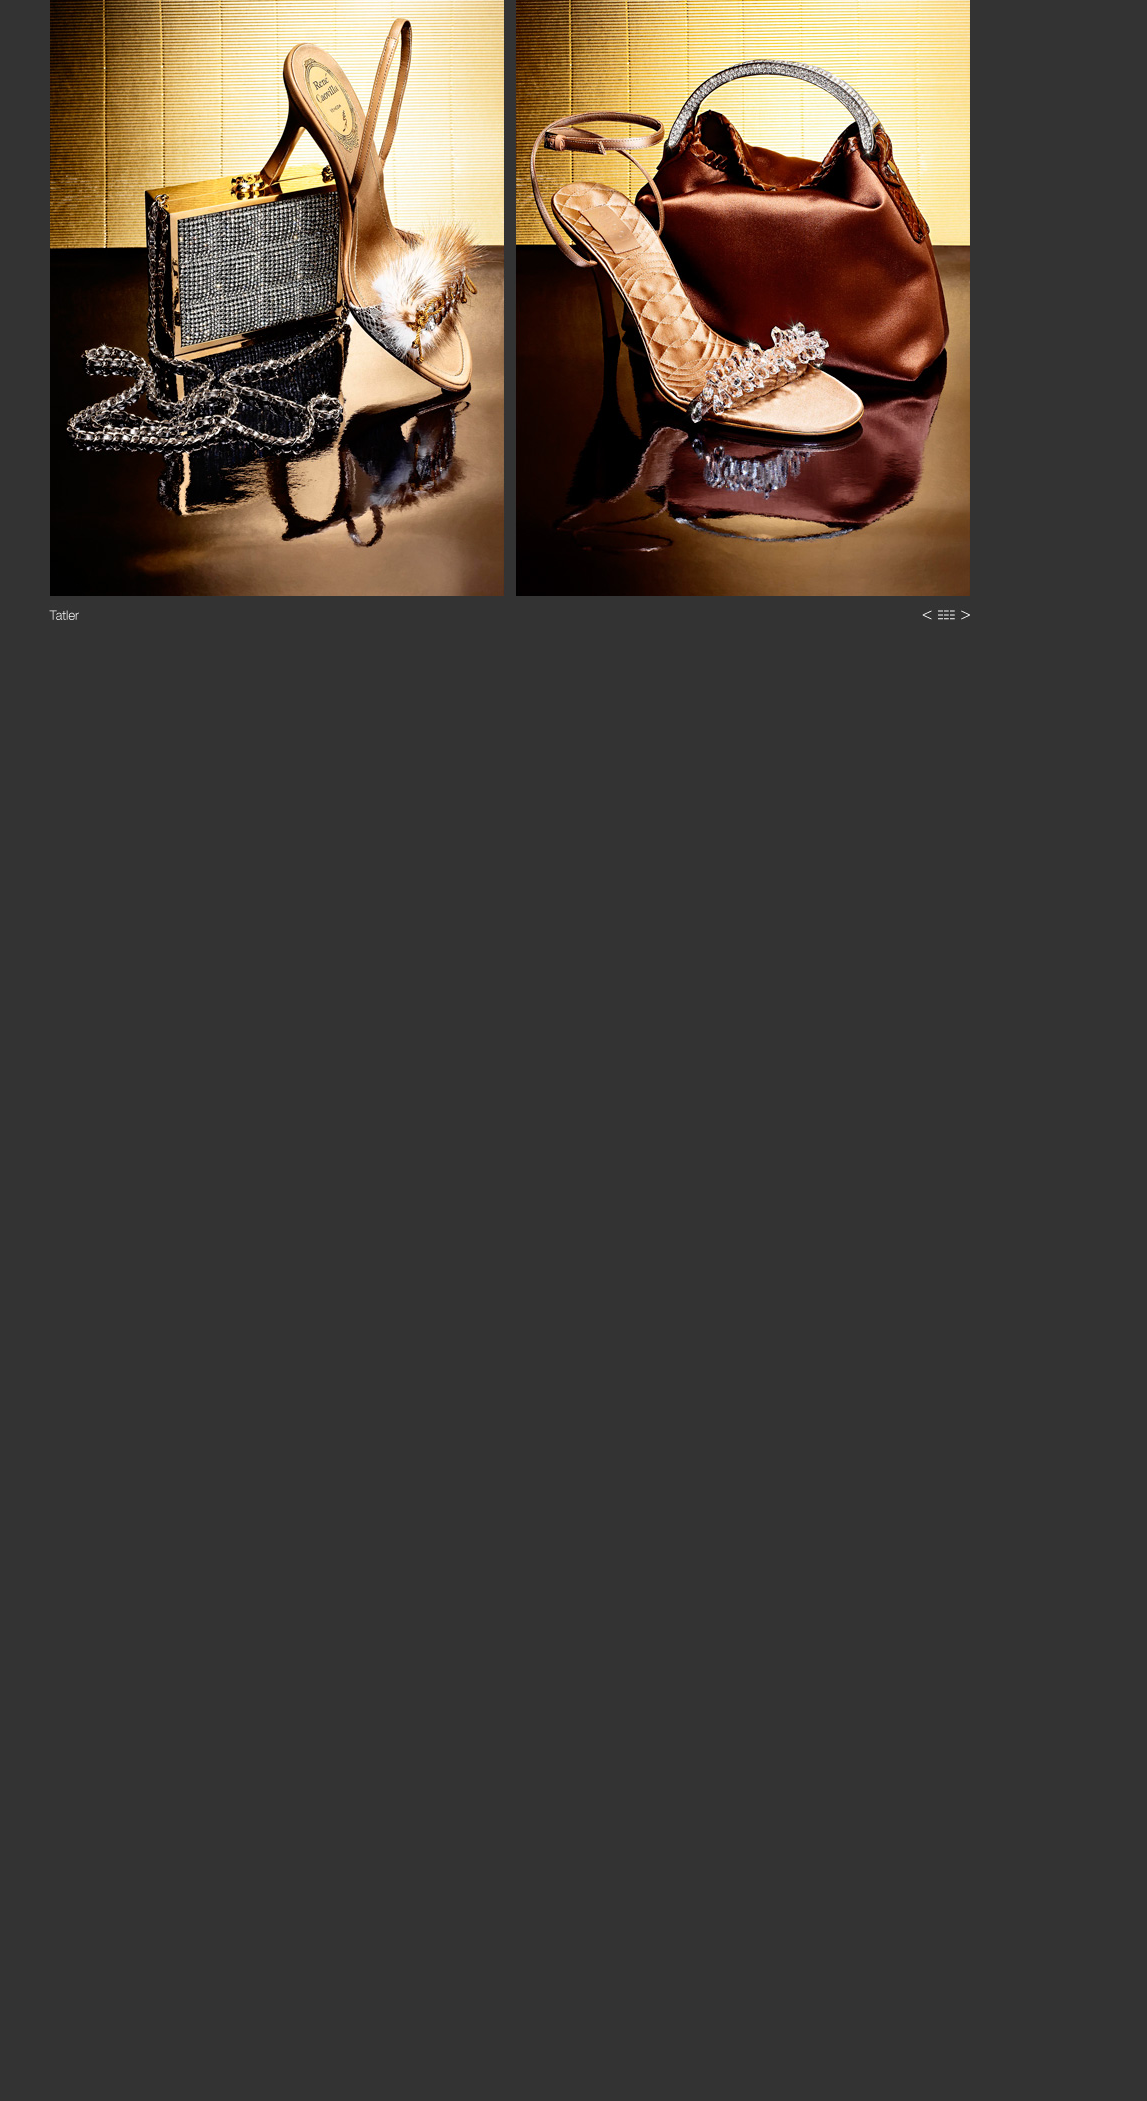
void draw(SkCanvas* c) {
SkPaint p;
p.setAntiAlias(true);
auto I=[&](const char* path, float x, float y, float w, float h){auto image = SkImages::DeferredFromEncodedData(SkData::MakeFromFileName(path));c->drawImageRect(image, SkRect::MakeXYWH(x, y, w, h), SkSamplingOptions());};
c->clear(0xff333333);
I("1.png",50,0,920,596);
I("2.png",49,604,921,16);
}
